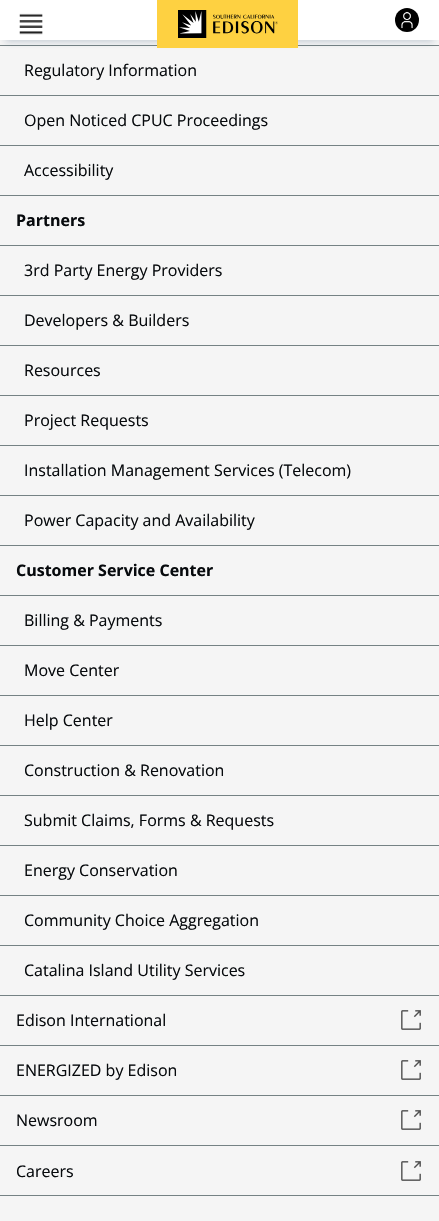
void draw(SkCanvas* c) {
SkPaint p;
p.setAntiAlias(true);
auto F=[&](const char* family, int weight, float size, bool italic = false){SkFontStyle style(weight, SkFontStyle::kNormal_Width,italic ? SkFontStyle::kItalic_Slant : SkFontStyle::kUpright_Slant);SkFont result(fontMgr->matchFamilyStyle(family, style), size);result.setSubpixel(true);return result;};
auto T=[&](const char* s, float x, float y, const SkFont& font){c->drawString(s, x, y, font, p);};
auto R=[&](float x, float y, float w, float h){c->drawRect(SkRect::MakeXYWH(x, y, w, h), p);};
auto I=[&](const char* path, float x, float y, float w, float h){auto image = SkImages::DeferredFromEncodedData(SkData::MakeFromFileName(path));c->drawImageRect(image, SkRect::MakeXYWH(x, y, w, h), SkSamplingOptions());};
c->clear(0xfff5f5f5);
p.setColor(0xff758284);
R(0,45,439,1);
p.setColor(0x330d305b);
p.setMaskFilter(SkMaskFilter::MakeBlur(kNormal_SkBlurStyle, 3.5));
c->drawRect(SkRect::MakeXYWH(5,12,429,30),p);
p.setMaskFilter(nullptr);
p.setColor(0xffffffff);
R(0,0,439,40);
I("1.png",19,13,24,22);
p.setColor(0xfffed141);
R(157,0,141,48);
I("2.png",178,10,100,28);
p.setColor(0xff000000);
c->drawCircle(407,20,12,p);
I("3.png",401,11,12,18);
p.setColor(0xff758284);
R(0,95,439,1);
auto f1 = F("Open Sans",400,16);
p.setColor(0xff070a0d);
T("Regulatory Information",24,76,f1);
p.setColor(0xff758284);
R(0,145,439,1);
p.setColor(0xff070a0d);
T("Open Noticed CPUC Proceedings",24,126,f1);
p.setColor(0xff758284);
R(0,195,439,1);
p.setColor(0xff070a0d);
T("Accessibility",24,176,f1);
p.setColor(0xff758284);
R(0,245,439,1);
auto f2 = F("Open Sans",700,16);
p.setColor(0xff070a0d);
T("Partners",16,226,f2);
p.setColor(0xff758284);
R(0,295,439,1);
p.setColor(0xff070a0d);
T("3rd Party Energy Providers",24,276,f1);
p.setColor(0xff758284);
R(0,345,439,1);
p.setColor(0xff070a0d);
T("Developers & Builders",24,326,f1);
p.setColor(0xff758284);
R(0,395,439,1);
p.setColor(0xff070a0d);
T("Resources",24,376,f1);
p.setColor(0xff758284);
R(0,445,439,1);
p.setColor(0xff070a0d);
T("Project Requests",24,426,f1);
p.setColor(0xff758284);
R(0,495,439,1);
p.setColor(0xff070a0d);
T("Installation Management Services (Telecom)",24,476,f1);
p.setColor(0xff758284);
R(0,545,439,1);
p.setColor(0xff070a0d);
T("Power Capacity and Availability",24,526,f1);
p.setColor(0xff758284);
R(0,595,439,1);
p.setColor(0xff070a0d);
T("Customer Service Center",16,576,f2);
p.setColor(0xff758284);
R(0,645,439,1);
p.setColor(0xff070a0d);
T("Billing & Payments",24,626,f1);
p.setColor(0xff758284);
R(0,695,439,1);
p.setColor(0xff070a0d);
T("Move Center",24,676,f1);
p.setColor(0xff758284);
R(0,745,439,1);
p.setColor(0xff070a0d);
T("Help Center",24,726,f1);
p.setColor(0xff758284);
R(0,795,439,1);
p.setColor(0xff070a0d);
T("Construction & Renovation",24,776,f1);
p.setColor(0xff758284);
R(0,845,439,1);
p.setColor(0xff070a0d);
T("Submit Claims, Forms & Requests",24,826,f1);
p.setColor(0xff758284);
R(0,895,439,1);
p.setColor(0xff070a0d);
T("Energy Conservation",24,876,f1);
p.setColor(0xff758284);
R(0,945,439,1);
p.setColor(0xff070a0d);
T("Community Choice Aggregation",24,926,f1);
p.setColor(0xff758284);
R(0,995,439,1);
p.setColor(0xff070a0d);
T("Catalina Island Utility Services",24,976,f1);
p.setColor(0xff758284);
R(0,1045,439,1);
p.setColor(0xff070a0d);
T("Edison International",16,1026,f1);
I("4.png",401,1010,20,20);
p.setColor(0xff758284);
R(0,1095,439,1);
p.setColor(0xff070a0d);
T("ENERGIZED by Edison",16,1076,f1);
I("4.png",401,1060,20,20);
p.setColor(0xff758284);
R(0,1145,439,1);
p.setColor(0xff070a0d);
T("Newsroom",16,1126,f1);
I("4.png",401,1110,20,20);
p.setColor(0xff758284);
R(0,1195,439,1);
p.setColor(0xff070a0d);
T("Careers",16,1177,f1);
I("4.png",401,1161,20,20);
}
